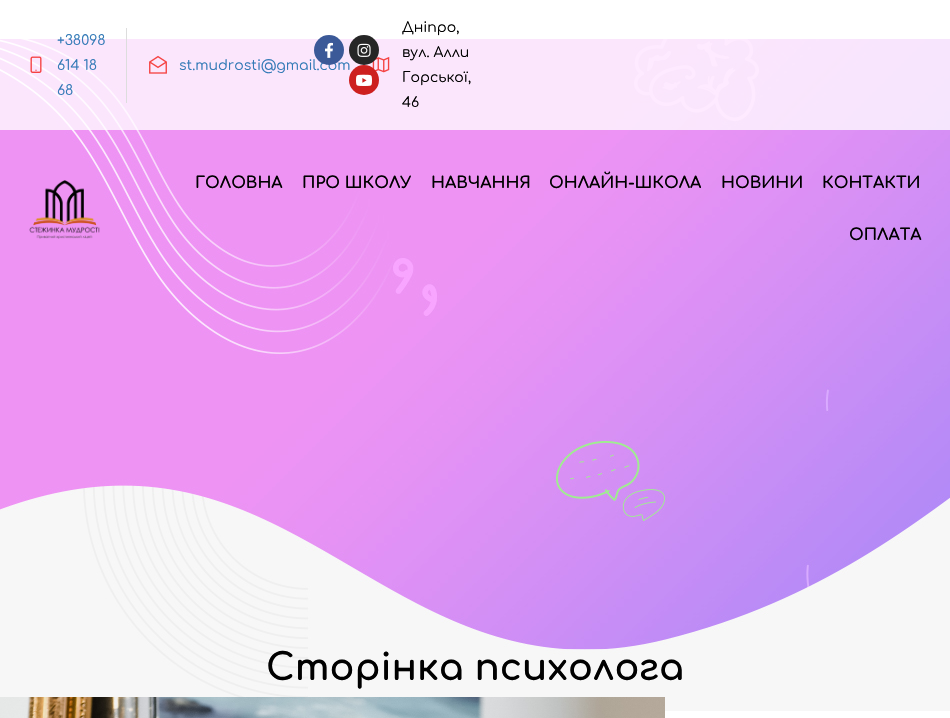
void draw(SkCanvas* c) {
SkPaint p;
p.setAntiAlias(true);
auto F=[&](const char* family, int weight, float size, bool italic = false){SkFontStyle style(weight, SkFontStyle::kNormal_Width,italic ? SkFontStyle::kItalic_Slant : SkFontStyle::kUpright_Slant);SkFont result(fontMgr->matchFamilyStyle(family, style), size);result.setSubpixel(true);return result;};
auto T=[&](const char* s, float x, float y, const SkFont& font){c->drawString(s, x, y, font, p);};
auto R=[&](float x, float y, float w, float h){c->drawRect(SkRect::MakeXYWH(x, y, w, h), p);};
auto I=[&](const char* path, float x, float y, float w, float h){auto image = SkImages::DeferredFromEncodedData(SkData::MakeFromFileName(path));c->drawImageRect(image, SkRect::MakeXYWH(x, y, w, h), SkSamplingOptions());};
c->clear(0xffffffff);
I("8.png",0,39,950,672);
p.setColor(0xc2ffffff);
R(0,39,950,91);
p.setColor(0xffdddddd);
R(126,28,1,75);
I("1.png",30,56,12,17);
auto f1 = F("Comfortaa",400,14);
p.setColor(0xff337ab7);
T("+38098",57,45,f1);
T("614 18",57,70,f1);
T("68",57,95,f1);
I("2.png",149,55,18,19);
T("st.mudrosti@gmail.com",179,70,f1);
I("3.png",372,56,18,17);
p.setColor(0xff000000);
T("Дніпро,",402,32,f1);
T("вул. Алли",402,57,f1);
T("Горської,",402,82,f1);
T("46",402,107,f1);
p.setColor(0xff3b5998);
c->drawCircle(329,50,15,p);
I("4.png",325,42,8,16);
p.setColor(0xff262626);
c->drawCircle(364,50,15,p);
I("5.png",357,43,14,14);
p.setColor(0xffcd201f);
c->drawCircle(364,80,15,p);
I("6.png",356,74,16,12);
I("7.png",29,180,71,59);
auto f2 = F("Comfortaa",700,16);
p.setColor(0xff000000);
T("ГОЛОВНА",195,188,f2);
T("ПРО ШКОЛУ",302,188,f2);
T("НАВЧАННЯ",431,188,f2);
T("ОНЛАЙН-ШКОЛА",549,188,f2);
T("НОВИНИ",721,188,f2);
T("КОНТАКТИ",822,188,f2);
T("ОПЛАТА",849,240,f2);
auto f3 = F("Comfortaa",700,37);
T("Сторінка психолога",266,680,f3);
I("9.png",0,697,665,21);
}
